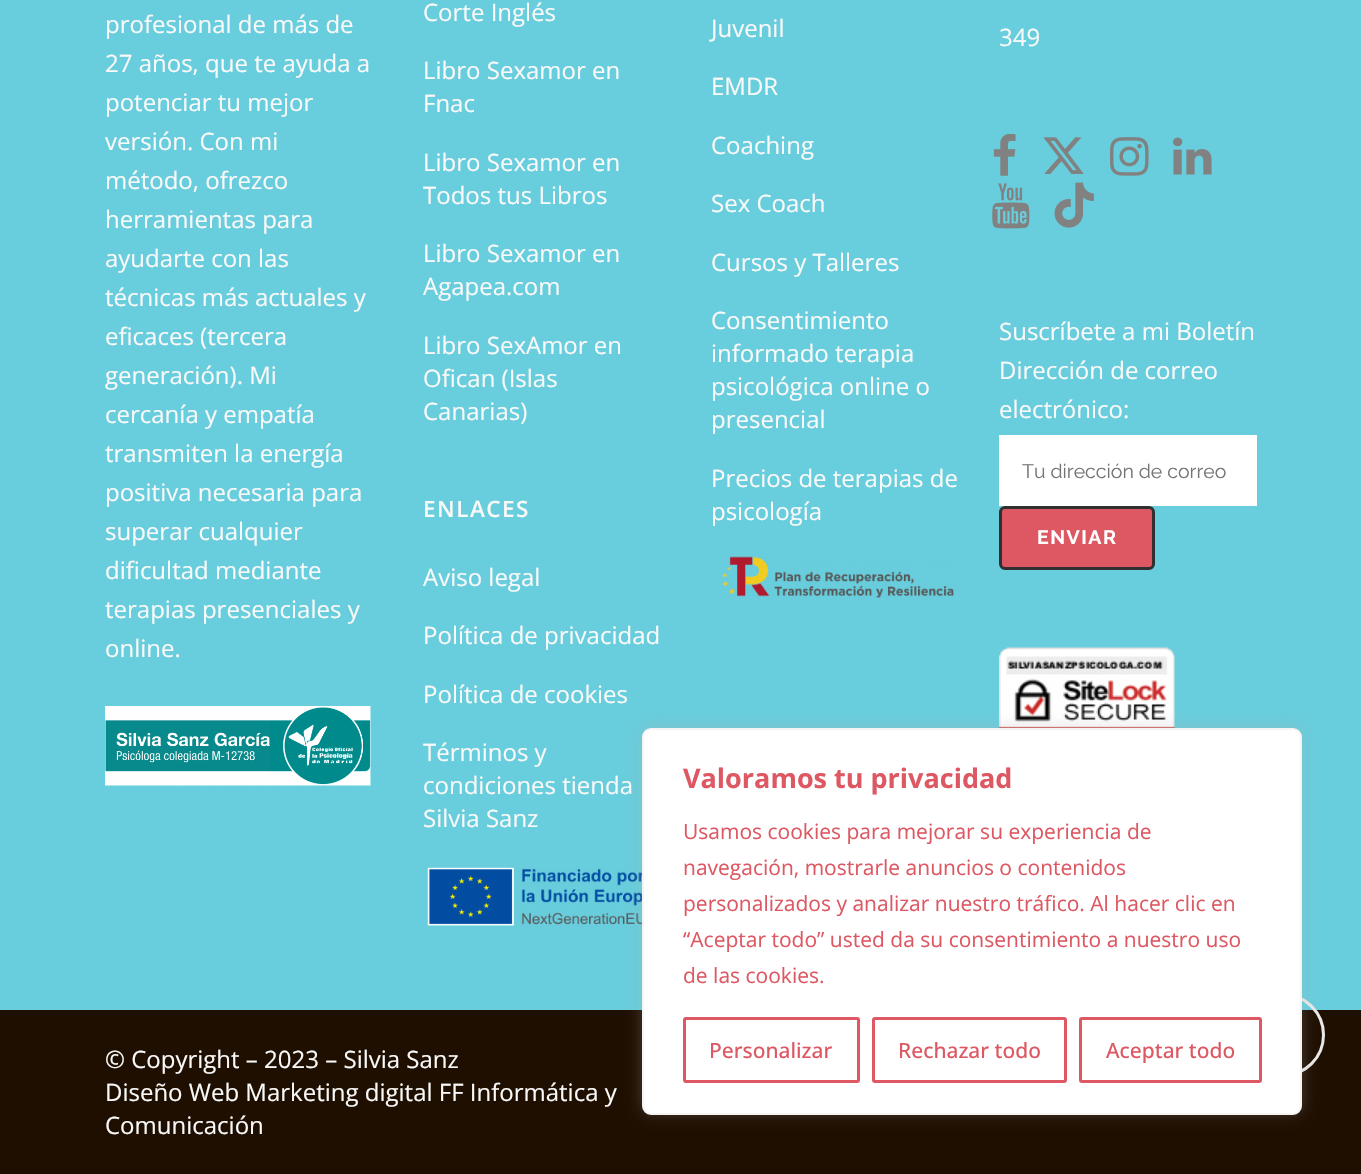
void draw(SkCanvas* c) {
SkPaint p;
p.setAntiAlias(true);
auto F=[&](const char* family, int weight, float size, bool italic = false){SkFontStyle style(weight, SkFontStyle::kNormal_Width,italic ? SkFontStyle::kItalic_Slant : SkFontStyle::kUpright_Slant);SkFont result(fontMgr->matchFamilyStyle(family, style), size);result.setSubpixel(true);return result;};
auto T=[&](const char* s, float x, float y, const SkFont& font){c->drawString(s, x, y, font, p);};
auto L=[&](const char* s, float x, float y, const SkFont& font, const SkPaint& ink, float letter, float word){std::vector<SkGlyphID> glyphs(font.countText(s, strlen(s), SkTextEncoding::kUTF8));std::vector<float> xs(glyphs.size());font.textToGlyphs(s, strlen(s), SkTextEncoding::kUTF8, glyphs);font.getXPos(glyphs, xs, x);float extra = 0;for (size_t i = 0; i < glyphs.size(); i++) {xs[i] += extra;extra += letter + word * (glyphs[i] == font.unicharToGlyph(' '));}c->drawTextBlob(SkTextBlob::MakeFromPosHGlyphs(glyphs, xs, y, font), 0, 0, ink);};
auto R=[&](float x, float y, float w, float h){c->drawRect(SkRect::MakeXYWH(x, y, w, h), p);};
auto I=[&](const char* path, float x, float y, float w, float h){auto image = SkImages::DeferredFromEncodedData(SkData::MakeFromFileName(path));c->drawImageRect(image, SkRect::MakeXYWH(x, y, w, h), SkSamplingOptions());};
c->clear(0xff1f0f01);
p.setColor(0xff68cddc);
R(0,0,1361,1010);
auto f1 = F("Open Sans",400,24);
p.setColor(0xfff9f9f9);
T("profesional de más de",105,33,f1);
T("27 años, que te ayuda a",105,72,f1);
T("potenciar tu mejor",105,111,f1);
T("versión. Con mi",105,150,f1);
T("método, ofrezco",105,189,f1);
T("herramientas para",105,228,f1);
T("ayudarte con las",105,267,f1);
T("técnicas más actuales y",105,306,f1);
T("eficaces (tercera",105,345,f1);
T("generación). Mi",105,384,f1);
T("cercanía y empatía",105,423,f1);
T("transmiten la energía",105,462,f1);
T("positiva necesaria para",105,501,f1);
T("superar cualquier",105,540,f1);
T("dificultad mediante",105,579,f1);
T("terapias presenciales y",105,618,f1);
T("online.",105,657,f1);
I("1.png",105,706,266,80);
T("Corte Inglés",423,21,f1);
T("Libro Sexamor en",423,79,f1);
T("Fnac",423,112,f1);
T("Libro Sexamor en",423,171,f1);
T("Todos tus Libros",423,204,f1);
T("Libro Sexamor en",423,262,f1);
T("Agapea.com",423,295,f1);
T("Libro SexAmor en",423,354,f1);
T("Ofican (Islas",423,387,f1);
T("Canarias)",423,420,f1);
auto f2 = F("Open Sans",600,22.5);
L("ENLACES",423,517,f2,p,1.5,0);
T("Aviso legal",423,586,f1);
T("Política de privacidad",423,644,f1);
T("Política de cookies",423,703,f1);
T("Términos y",423,761,f1);
T("condiciones tienda",423,794,f1);
T("Silvia Sanz",423,827,f1);
I("2.png",427,867,215,59);
T("Juvenil",711,37,f1);
T("EMDR",711,95,f1);
T("Coaching",711,154,f1);
T("Sex Coach",711,212,f1);
T("Cursos y Talleres",711,271,f1);
T("Consentimiento",711,329,f1);
T("informado terapia",711,362,f1);
T("psicológica online o",711,395,f1);
T("presencial",711,428,f1);
T("Precios de terapias de",711,487,f1);
T("psicología",711,520,f1);
I("3.png",722,556,232,42);
T("349",999,46,f1);
I("4.png",993,133,23,43);
I("5.png",1043,137,41,37);
I("6.png",1110,137,39,39);
I("7.png",1173,137,39,38);
I("8.png",992,183,38,46);
I("9.png",1054,182,40,46);
T("Suscríbete a mi Boletín",999,340,f1);
T("Dirección de correo",999,379,f1);
T("electrónico:",999,418,f1);
p.setColor(0xffffffff);
R(999,435,258,71);
auto f3 = F("Raleway",400,19.5);
p.setColor(0xff757575);
T("Tu dirección de correo",1022,478,f3);
p.setColor(0xffdd5863);
c->drawRoundRect(SkRect::MakeXYWH(1000.5,507.5,153,61),4.5,4.5,p);
p.setStroke(true);
p.setStrokeWidth(3);
p.setColor(0xff303030);
c->drawRoundRect(SkRect::MakeXYWH(1000.5,507.5,153,61),4.5,4.5,p);
auto f4 = F("Raleway",700,19.5);
p.setStroke(false);
p.setColor(0xffffffff);
L("ENVIAR",1037,544,f4,p,1.5,0);
I("10.png",999,647,176,81);
p.setColor(0xfff9f9f9);
T("© Copyright – 2023 – Silvia Sanz",105,1068,f1);
T("Diseño Web Marketing digital FF Informática y",105,1101,f1);
T("Comunicación",105,1134,f1);
p.setStroke(true);
p.setColor(0xffe8e8e8);
c->drawCircle(1283,1035,40.5,p);
p.setStroke(false);
p.setColor(0x4dacabab);
p.setMaskFilter(SkMaskFilter::MakeBlur(kNormal_SkBlurStyle, 7.5));
c->drawRoundRect(SkRect::MakeXYWH(642,726,660,387),9,9,p);
p.setMaskFilter(nullptr);
p.setColor(0xffffffff);
c->drawRoundRect(SkRect::MakeXYWH(643,729,658,385),8,8,p);
p.setStroke(true);
p.setStrokeWidth(2);
p.setColor(0xfff4f4f4);
c->drawRoundRect(SkRect::MakeXYWH(643,729,658,385),8,8,p);
auto f5 = F("Open Sans",700,27);
p.setStroke(false);
p.setColor(0xffdd5863);
T("Valoramos tu privacidad",683,788,f5);
auto f6 = F("Open Sans",400,21);
T("Usamos cookies para mejorar su experiencia de",683,839,f6);
T("navegación, mostrarle anuncios o contenidos",683,875,f6);
T("personalizados y analizar nuestro tráfico. Al hacer clic en",683,911,f6);
T("“Aceptar todo” usted da su consentimiento a nuestro uso",683,947,f6);
T("de las cookies.",683,983,f6);
p.setStroke(true);
p.setStrokeWidth(3);
c->drawRoundRect(SkRect::MakeXYWH(684.5,1018.5,174,63),1.5,1.5,p);
auto f7 = F("Open Sans",500,21);
p.setStroke(false);
T("Personalizar",709,1058,f7);
p.setStroke(true);
c->drawRoundRect(SkRect::MakeXYWH(873.5,1018.5,192,63),1.5,1.5,p);
p.setStroke(false);
T("Rechazar todo",898,1058,f7);
p.setStroke(true);
c->drawRoundRect(SkRect::MakeXYWH(1080.5,1018.5,180,63),1.5,1.5,p);
p.setStroke(false);
T("Aceptar todo",1106,1058,f7);
}
